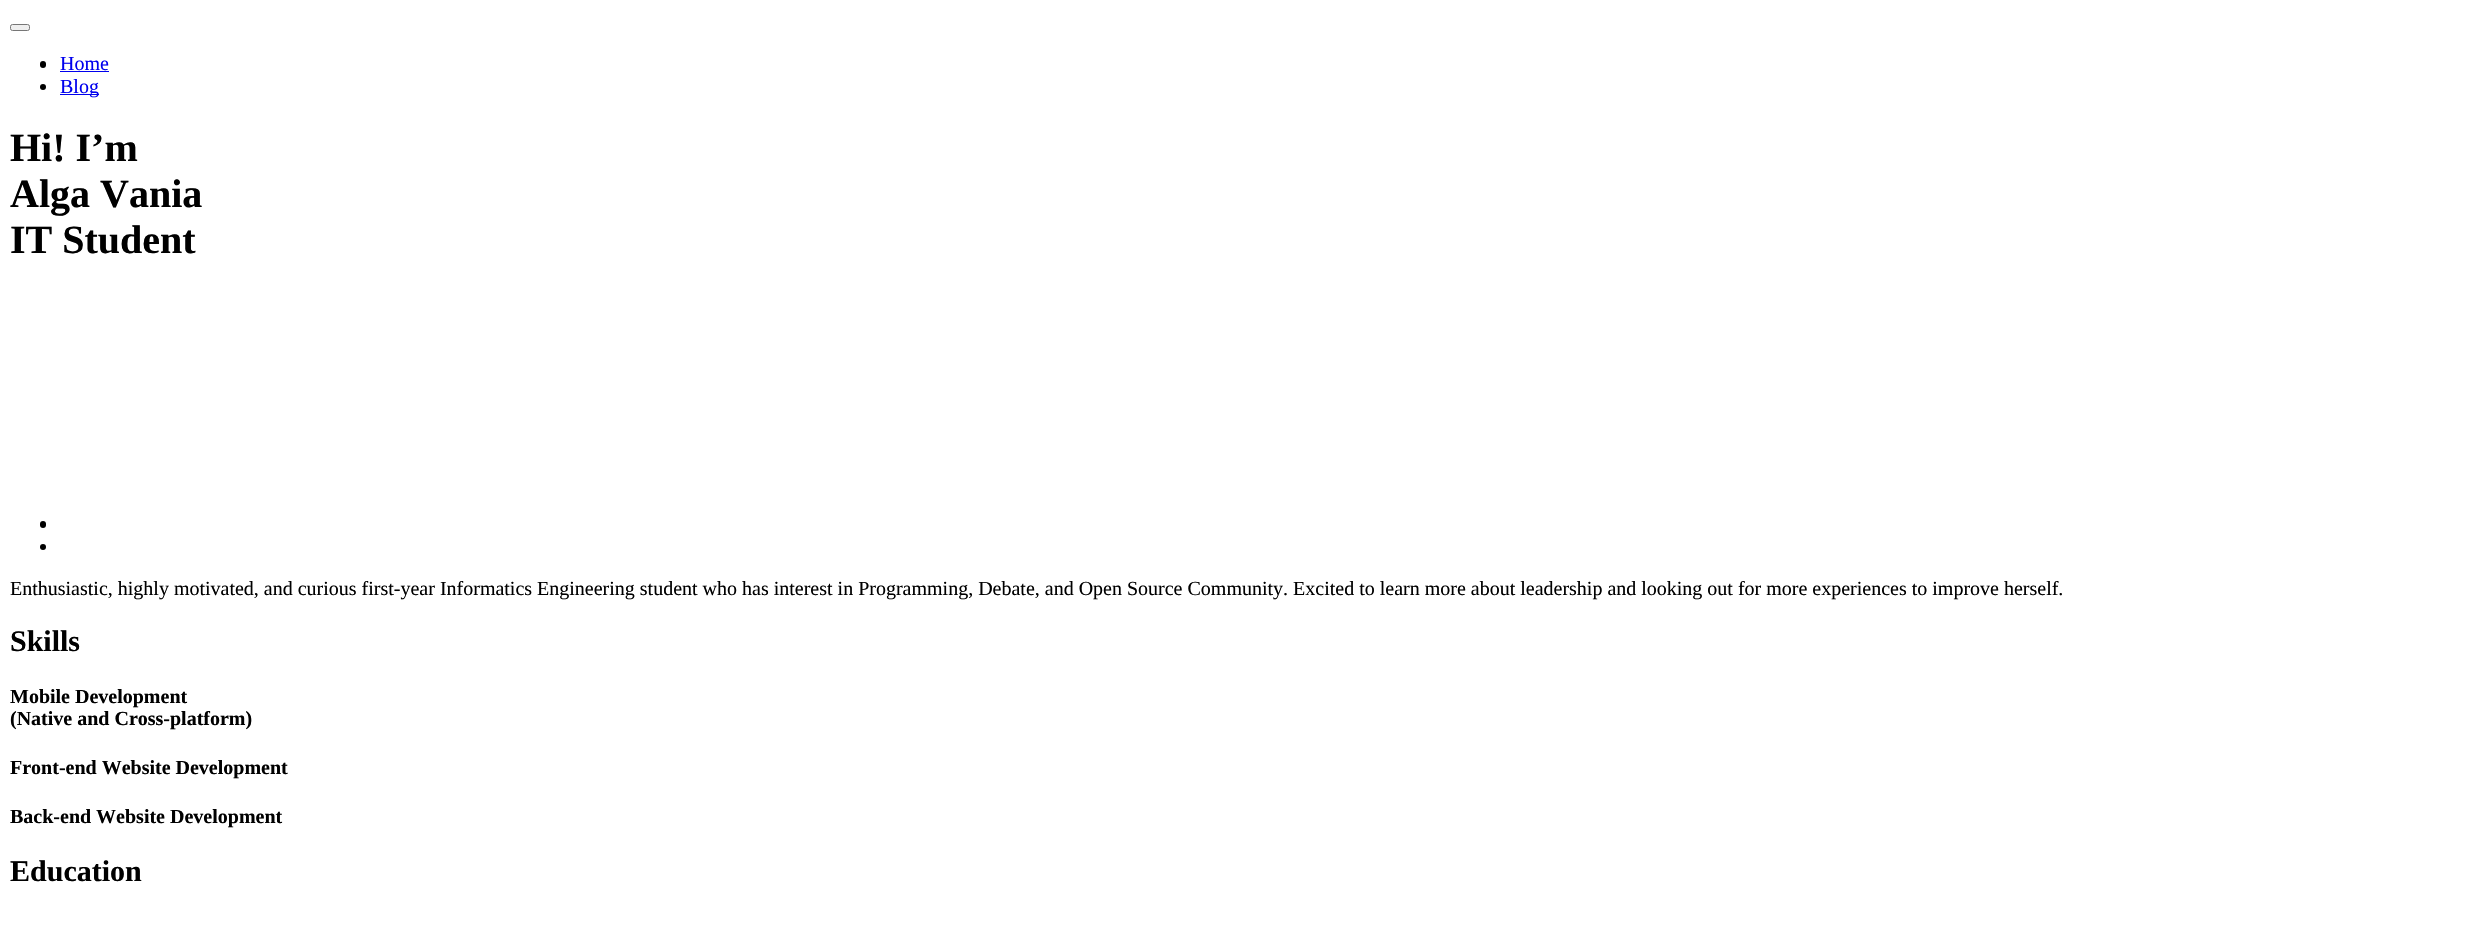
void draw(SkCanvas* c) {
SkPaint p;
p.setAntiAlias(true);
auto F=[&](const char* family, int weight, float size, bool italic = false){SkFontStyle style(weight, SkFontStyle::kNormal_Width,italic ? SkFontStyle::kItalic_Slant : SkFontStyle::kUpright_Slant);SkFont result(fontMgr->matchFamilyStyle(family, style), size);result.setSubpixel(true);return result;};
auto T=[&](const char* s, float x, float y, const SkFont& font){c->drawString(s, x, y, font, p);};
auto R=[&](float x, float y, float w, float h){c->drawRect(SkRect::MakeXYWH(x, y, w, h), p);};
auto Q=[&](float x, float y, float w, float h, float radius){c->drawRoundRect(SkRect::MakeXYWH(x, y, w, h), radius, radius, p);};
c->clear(0xffffffff);
p.setColor(0xffefefef);
c->drawRoundRect(SkRect::MakeXYWH(10.5,24.5,19,6),2,2,p);
p.setStroke(true);
p.setStrokeWidth(1);
p.setColor(0xff767676);
c->drawRoundRect(SkRect::MakeXYWH(10.5,24.5,19,6),2,2,p);
p.setStroke(false);
p.setColor(0xff000000);
Q(40,61,6,7,3);
auto f1 = F("Liberation Serif",400,20);
p.setColor(0xff0000ee);
T("Home",60,70,f1);
R(60,71,49,1);
p.setColor(0xff000000);
c->drawCircle(43,87,3,p);
p.setColor(0xff0000ee);
R(60,94,39,1);
T("Blog",60,93,f1);
auto f2 = F("Liberation Serif",700,40);
p.setColor(0xff000000);
T("Hi! I’m",10,161,f2);
T("Alga Vania",10,207,f2);
T("IT Student",10,253,f2);
Q(40,521,6,7,3);
c->drawCircle(43,547,3,p);
T("Enthusiastic, highly motivated, and curious first-year Informatics Engineering student who has interest in Programming, Debate, and Open Source Community. Excited to learn more about leadership and looking out for more experiences to improve herself.",10,595,f1);
auto f3 = F("Liberation Serif",700,30);
T("Skills",10,651,f3);
auto f4 = F("Liberation Serif",700,20);
T("Mobile Development",10,703,f4);
T("(Native and Cross-platform)",10,725,f4);
T("Front-end Website Development",10,774,f4);
T("Back-end Website Development",10,823,f4);
T("Education",10,881,f3);
}
